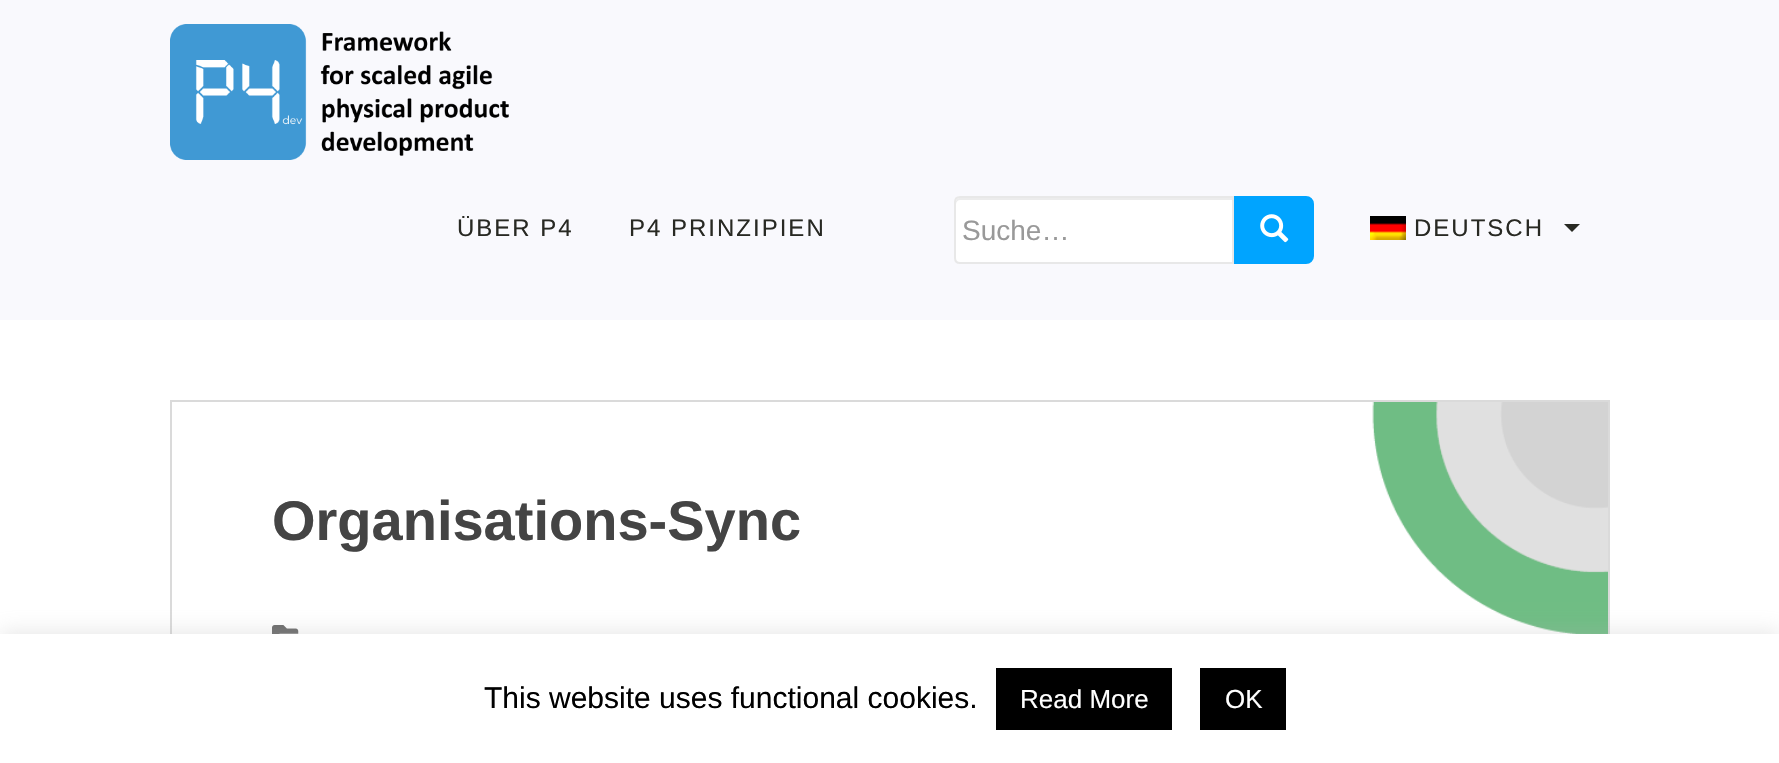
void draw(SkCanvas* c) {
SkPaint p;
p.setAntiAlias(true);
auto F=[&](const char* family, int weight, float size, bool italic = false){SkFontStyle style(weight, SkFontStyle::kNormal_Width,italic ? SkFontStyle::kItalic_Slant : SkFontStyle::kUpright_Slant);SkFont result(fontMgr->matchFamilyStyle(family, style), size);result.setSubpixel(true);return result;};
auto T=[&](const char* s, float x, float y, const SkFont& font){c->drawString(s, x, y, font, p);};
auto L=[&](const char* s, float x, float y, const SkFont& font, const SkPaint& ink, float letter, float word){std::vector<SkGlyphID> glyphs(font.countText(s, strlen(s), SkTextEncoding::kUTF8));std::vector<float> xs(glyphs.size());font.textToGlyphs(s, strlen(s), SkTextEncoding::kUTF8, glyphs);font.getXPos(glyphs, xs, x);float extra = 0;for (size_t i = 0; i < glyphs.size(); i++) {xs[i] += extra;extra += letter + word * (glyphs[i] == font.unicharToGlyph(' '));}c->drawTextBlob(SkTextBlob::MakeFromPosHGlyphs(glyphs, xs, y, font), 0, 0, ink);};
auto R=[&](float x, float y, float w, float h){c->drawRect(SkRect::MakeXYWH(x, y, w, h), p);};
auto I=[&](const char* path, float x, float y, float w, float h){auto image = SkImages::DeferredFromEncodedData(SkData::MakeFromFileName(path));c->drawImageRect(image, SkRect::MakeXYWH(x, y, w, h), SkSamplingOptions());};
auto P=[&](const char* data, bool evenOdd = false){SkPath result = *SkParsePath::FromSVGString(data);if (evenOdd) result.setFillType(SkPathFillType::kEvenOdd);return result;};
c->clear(0xffffffff);
p.setColor(0xfff9f9fd);
R(0,0,1779,320);
I("1.png",170,24,339,136);
auto f1 = F("Liberation Sans",400,24);
p.setColor(0xff282923);
L("ÜBER P4",457,236,f1,p,2,0);
L("P4 PRINZIPIEN",629,236,f1,p,2,0);
p.setColor(0xffffffff);
c->drawPath(P("M960 196h274v68h-274c-3.5 0-6-2.5-6-6v-56c0-3.5 2.5-6 6-6z"),p);
p.setColor(0xffececec);
c->drawPath(P("M960 200h272v-2h-272c-4 0-4 3-4 6c0-2 2-4 4-4z"),p);
p.setStroke(true);
p.setStrokeWidth(2);
p.setColor(0xffe8e8e8);
c->drawPath(P("M960 197h273v66h-273c-3 0-5-2-5-5v-56c0-3 2-5 5-5z"),p);
auto f2 = F("Liberation Sans",400,28);
p.setStroke(false);
p.setColor(0xff999999);
T("Suche…",962,240,f2);
p.setColor(0xff00a4ff);
c->drawPath(P("M1235 197h71c4 0 7 3 7 7v52c0 4-3 7-7 7h-71z"),p);
p.setStroke(true);
c->drawPath(P("M1235 197h71c4 0 7 3 7 7v52c0 4-3 7-7 7h-71z"),p);
I("2.png",1260,214,29,29);
I("3.png",1370,216,36,24);
p.setStroke(false);
p.setColor(0xff282923);
L("DEUTSCH",1414,236,f1,p,2,0);
c->drawPath(P("M1564 224h16l-8 8z"),p);
p.setStroke(true);
p.setColor(0xffdadada);
c->drawRect(SkRect::MakeXYWH(171,401,1438,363),p);
I("4.png",1372,402,236,232);
auto f3 = F("Liberation Sans",700,56);
p.setStroke(false);
p.setColor(0xff444444);
T("Organisations-Sync",272,540,f3);
I("5.png",272,625,27,9);
p.setColor(0x4dacabab);
p.setMaskFilter(SkMaskFilter::MakeBlur(kNormal_SkBlurStyle, 10));
c->drawRect(SkRect::MakeXYWH(0,632,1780,130),p);
p.setMaskFilter(nullptr);
p.setColor(0xffffffff);
R(0,634,1779,129);
auto f4 = F("Liberation Sans",400,30);
p.setColor(0xff000000);
T("This website uses functional cookies.",484,708,f4);
R(996,668,176,62);
auto f5 = F("Liberation Sans",400,26);
p.setColor(0xffffffff);
T("Read More",1020,708,f5);
p.setColor(0xff000000);
R(1200,668,86,62);
p.setColor(0xffffffff);
T("OK",1225,708,f5);
}
